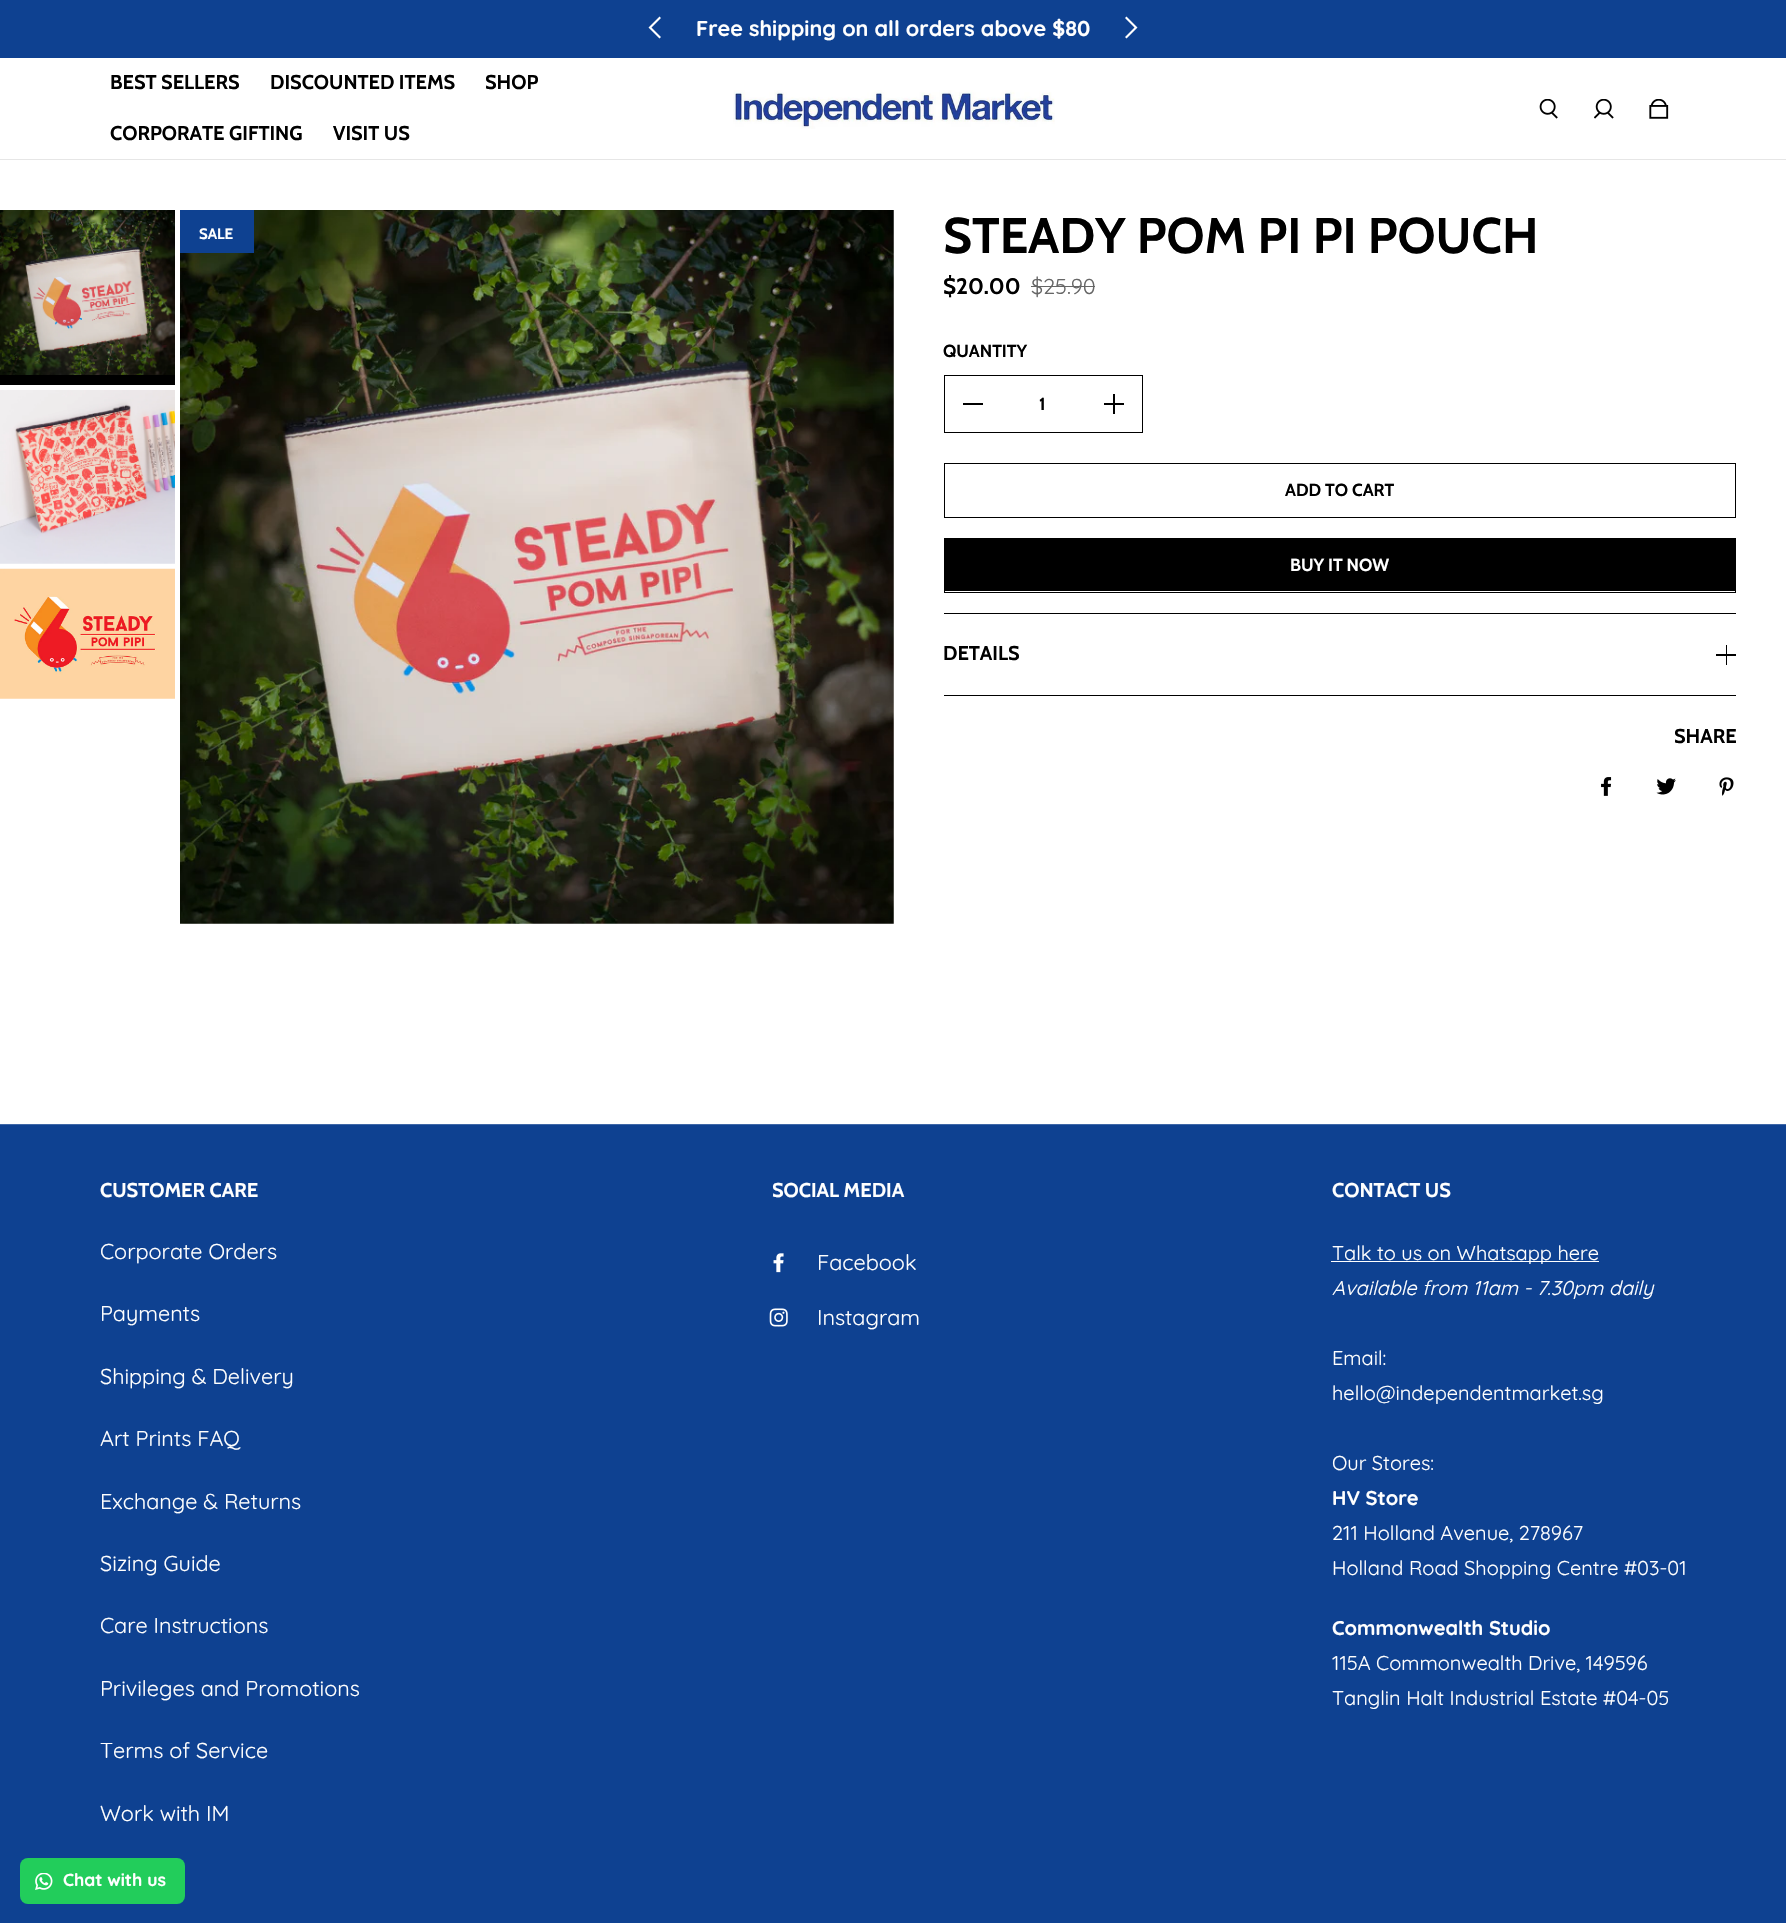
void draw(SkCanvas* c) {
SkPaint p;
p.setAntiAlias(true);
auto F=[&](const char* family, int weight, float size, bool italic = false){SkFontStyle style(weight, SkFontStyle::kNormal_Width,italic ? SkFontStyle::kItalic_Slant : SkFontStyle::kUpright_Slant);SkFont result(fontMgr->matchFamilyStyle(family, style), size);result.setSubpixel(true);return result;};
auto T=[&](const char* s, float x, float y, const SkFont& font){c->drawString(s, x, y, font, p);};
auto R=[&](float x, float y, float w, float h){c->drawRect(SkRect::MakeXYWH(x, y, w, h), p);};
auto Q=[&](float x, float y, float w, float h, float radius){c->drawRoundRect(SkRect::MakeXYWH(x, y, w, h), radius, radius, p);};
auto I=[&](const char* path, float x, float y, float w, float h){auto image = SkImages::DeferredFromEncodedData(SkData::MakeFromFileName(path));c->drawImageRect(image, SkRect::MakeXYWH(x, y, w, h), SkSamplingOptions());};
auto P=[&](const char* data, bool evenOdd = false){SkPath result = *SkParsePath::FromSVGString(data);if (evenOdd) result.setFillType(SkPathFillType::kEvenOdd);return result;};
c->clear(0xffffffff);
p.setColor(0xff0e4191);
R(0,0,1786,58);
p.setColor(0xffffffff);
c->drawPath(P("M651.5 27.5l9.5-9.5l-1.5-1.5l-11 11l11 11l1.5-1.5z",true),p);
auto f1 = F("Quicksand",700,21.6);
T("Free shipping on all orders above $80",696,36,f1);
c->drawPath(P("M1134.5 27.5l-9.5 9.5l1.5 1.5l11-11l-11-11l-1.5 1.5z",true),p);
p.setColor(0xffe6e6e6);
R(0,159,1786,1);
auto f2 = F("Cabin",700,20);
p.setColor(0xff000000);
T("BEST SELLERS",110,89,f2);
T("DISCOUNTED ITEMS",270,89,f2);
T("SHOP",485,89,f2);
T("CORPORATE GIFTING",110,140,f2);
T("VISIT US",333,140,f2);
I("1.png",733,90,322,39);
I("2.png",1539,99,19,20);
I("3.png",1594,99,20,20);
I("4.png",1649,99,20,20);
I("5.png",0,210,175,165);
R(0,375,175,10);
I("6.png",0,390,175,174);
I("7.png",0,568,175,131);
I("8.png",180,210,714,714);
p.setColor(0xff0e4191);
R(180,210,74,43);
auto f3 = F("Cabin",700,15);
p.setColor(0xffffffff);
T("SALE",199,239,f3);
auto f4 = F("Cabin",700,50);
p.setColor(0xff000000);
T("STEADY POM PI PI POUCH",943,253,f4);
auto f5 = F("Cabin",700,22.5);
T("$20.00",943,294,f5);
auto f6 = F("Quicksand",400,21.6);
p.setColor(0xff666666);
T("$25.90",1031,294,f6);
R(1031,286,64,1);
auto f7 = F("Cabin",700,17.5);
p.setColor(0xff000000);
T("QUANTITY",943,357,f7);
p.setStroke(true);
p.setStrokeWidth(1);
c->drawRect(SkRect::MakeXYWH(944.5,375.5,198,57),p);
p.setStroke(false);
R(963,403,20,2);
T("1",1039,410,f7);
R(1104,403,20,2);
R(1113,394,2,20);
p.setStroke(true);
c->drawRect(SkRect::MakeXYWH(944.5,463.5,791,54),p);
p.setStroke(false);
T("ADD TO CART",1285,496,f7);
p.setStroke(true);
c->drawRect(SkRect::MakeXYWH(944.5,538.5,791,54),p);
p.setStroke(false);
R(945,539,790,52);
p.setColor(0xffffffff);
T("BUY IT NOW",1290,571,f7);
p.setColor(0xff000000);
R(944,613,792,1);
R(944,695,792,1);
T("DETAILS",943,660,f2);
R(1716,654,20,2);
R(1726,645,1,20);
T("SHARE",1674,743,f2);
I("9.png",1601,777,11,19);
I("10.png",1656,778,20,17);
I("11.png",1719,777,15,19);
p.setColor(0xff0e4191);
R(0,1125,1786,798);
p.setColor(0xff3e67a7);
R(0,1124,1786,1);
p.setColor(0xffffffff);
T("CUSTOMER CARE",100,1197,f2);
T("Corporate Orders",100,1259,f6);
T("Payments",100,1321,f6);
T("Shipping & Delivery",100,1384,f6);
T("Art Prints FAQ",100,1446,f6);
T("Exchange & Returns",100,1509,f6);
T("Sizing Guide",100,1571,f6);
T("Care Instructions",100,1633,f6);
T("Privileges and Promotions",100,1696,f6);
T("Terms of Service",100,1758,f6);
T("Work with IM",100,1821,f6);
T("SOCIAL MEDIA",772,1197,f2);
I("12.png",773,1253,11,20);
T("Facebook",817,1270,f6);
I("13.png",769,1308,19,19);
T("Instagram",817,1325,f6);
T("CONTACT US",1332,1197,f2);
R(1331,1261,268,1);
auto f8 = F("Quicksand",400,20);
T("Talk to us on Whatsapp here",1332,1260,f8);
auto f9 = F("Quicksand",400,20,true);
T("Available from 11am - 7.30pm daily",1332,1295,f9);
T("Email:",1332,1365,f8);
T("hello@independentmarket.sg",1332,1400,f8);
T("Our Stores:",1332,1470,f8);
auto f10 = F("Quicksand",700,20);
T("HV Store",1332,1505,f10);
T("211 Holland Avenue, 278967",1332,1540,f8);
T("Holland Road Shopping Centre #03-01",1332,1575,f8);
T("Commonwealth Studio",1332,1635,f10);
T("115A Commonwealth Drive, 149596",1332,1670,f8);
T("Tanglin Halt Industrial Estate #04-05",1332,1705,f8);
p.setColor(0xff22cd5b);
Q(20,1858,165,46,8);
I("14.png",35,1873,18,17);
auto f11 = F("Quicksand",700,17.5);
p.setColor(0xffffffff);
T("Chat with us",63,1886,f11);
}
